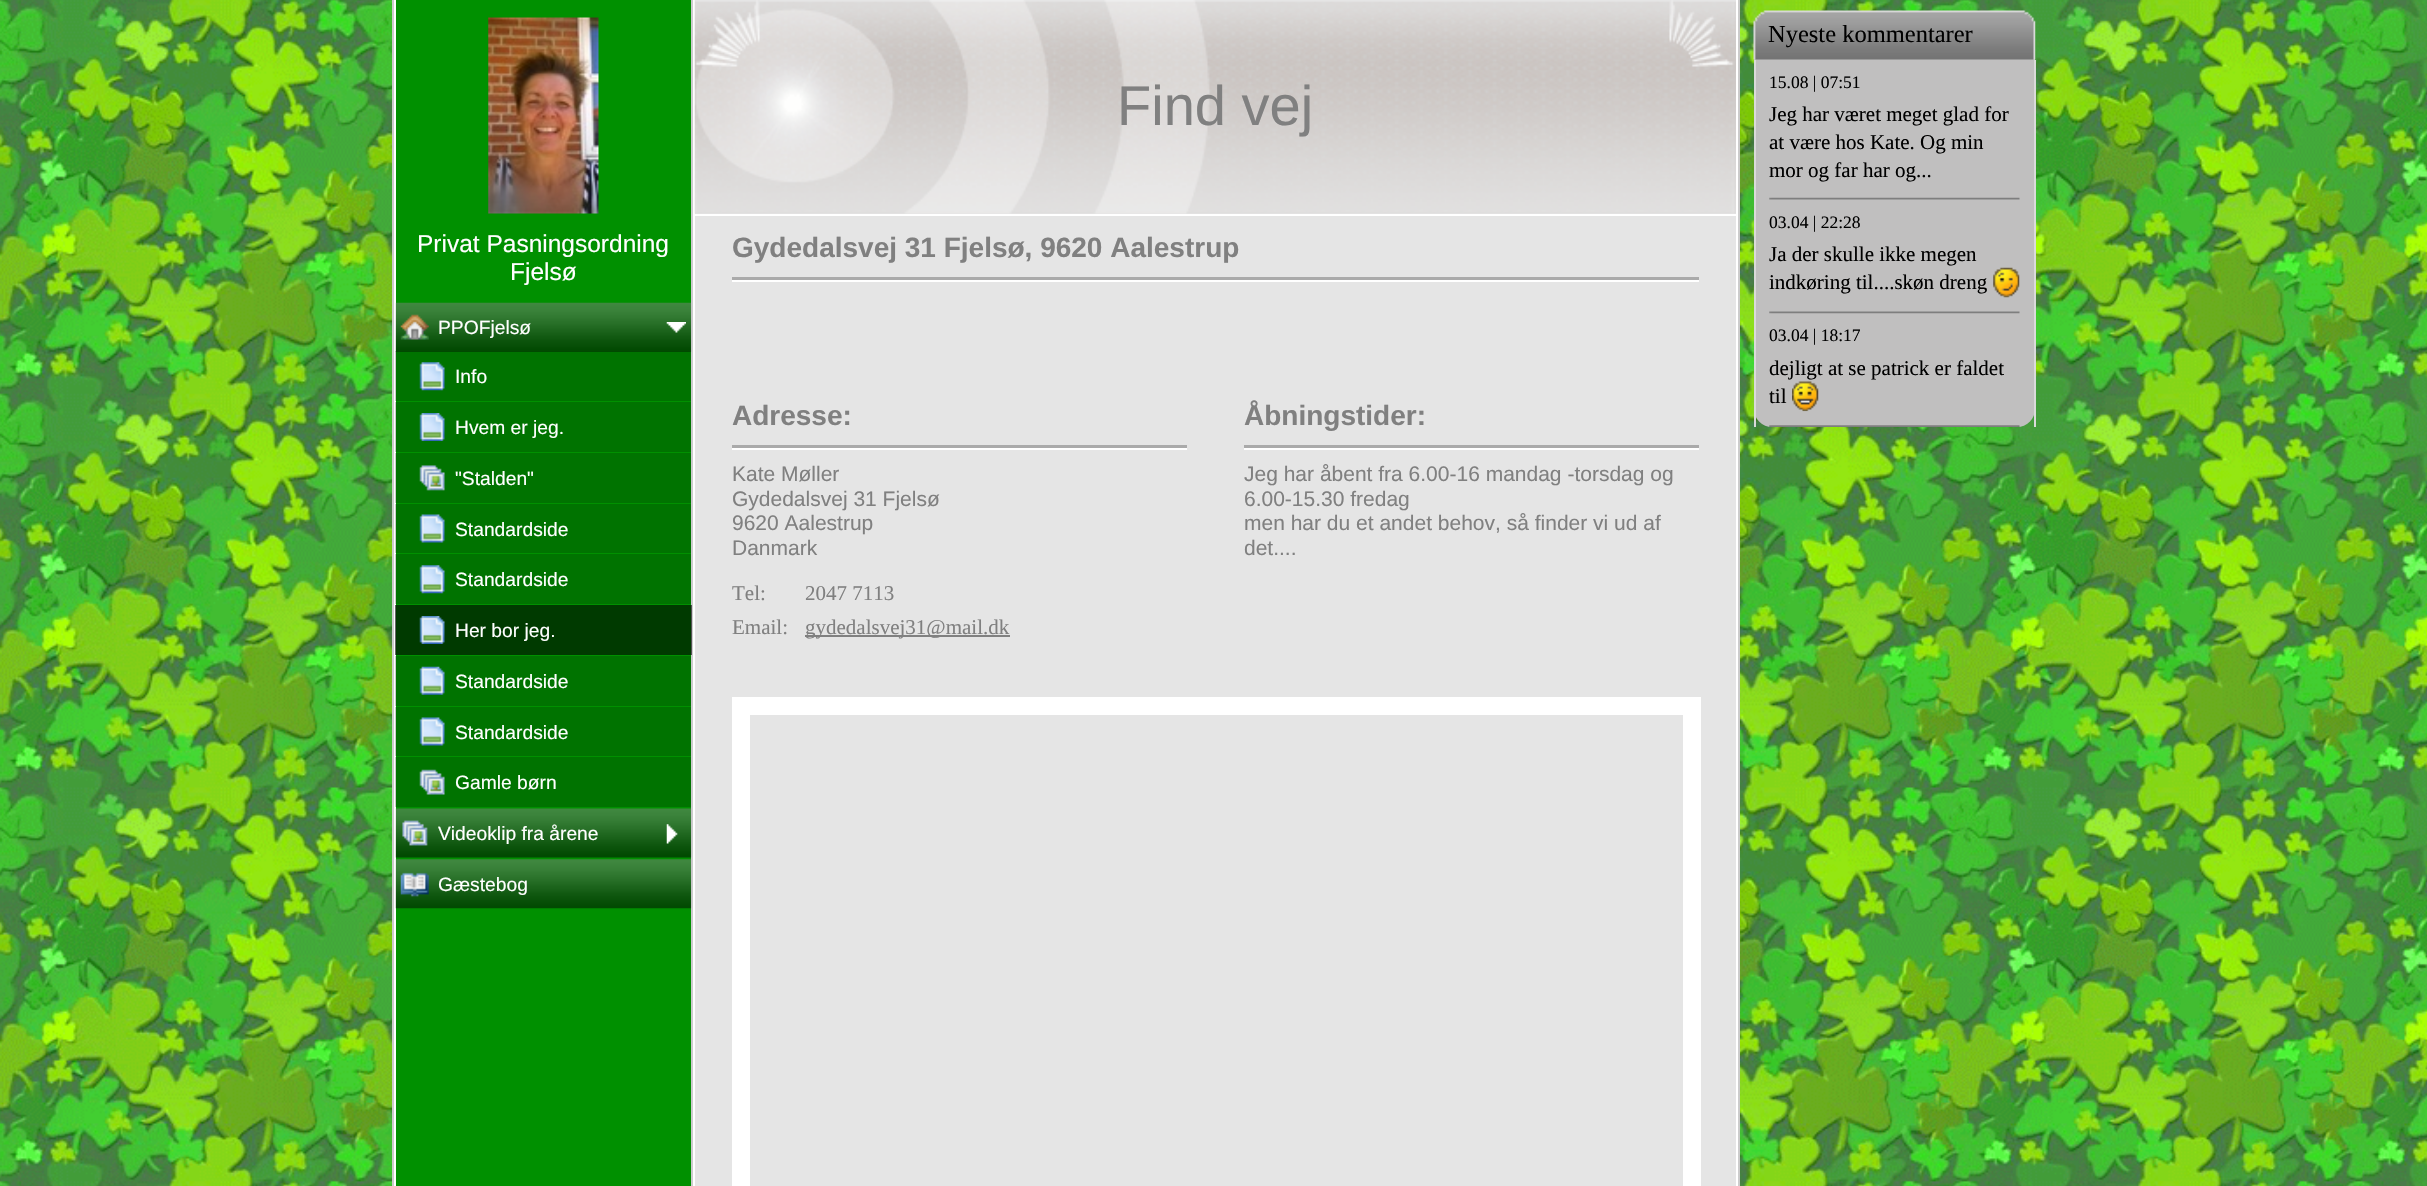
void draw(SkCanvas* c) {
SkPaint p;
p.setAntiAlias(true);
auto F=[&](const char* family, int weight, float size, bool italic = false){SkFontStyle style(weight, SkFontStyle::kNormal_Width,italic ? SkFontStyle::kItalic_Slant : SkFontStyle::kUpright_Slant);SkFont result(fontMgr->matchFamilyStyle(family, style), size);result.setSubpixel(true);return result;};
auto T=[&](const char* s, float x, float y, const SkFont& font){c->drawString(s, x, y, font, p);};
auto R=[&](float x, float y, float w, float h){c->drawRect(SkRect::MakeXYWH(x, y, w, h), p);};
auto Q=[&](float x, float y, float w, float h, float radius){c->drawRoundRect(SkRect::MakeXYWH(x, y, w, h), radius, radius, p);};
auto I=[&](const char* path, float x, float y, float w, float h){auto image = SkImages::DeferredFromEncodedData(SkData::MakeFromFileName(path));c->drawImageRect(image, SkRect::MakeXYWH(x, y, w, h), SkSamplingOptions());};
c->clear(0xffffffff);
I("1.png",0,0,2427,1186);
p.setColor(0xffffffff);
R(394,0,1344,1186);
p.setColor(0xffcccccc);
R(392,0,2,1186);
p.setColor(0xff009000);
R(396,0,295,1186);
I("2.png",488,17,111,197);
auto f1 = F("Liberation Sans",400,24.5);
p.setColor(0xffffffff);
T("Privat Pasningsordning",417,252,f1);
T("Fjelsø",510,280,f1);
p.setColor(0xffcccccc);
R(691,0,2,1186);
I("3.png",395,302,297,50);
I("4.png",400,314,29,26);
I("5.png",666,322,20,11);
auto f2 = F("Liberation Sans",400,19.25);
p.setColor(0xffffffff);
T("PPOFjelsø",438,334,f2);
p.setColor(0x33000000);
R(395,351,296,50);
I("6.png",419,362,26,29);
p.setColor(0xffffffff);
T("Info",455,383,f2);
p.setColor(0x33000000);
R(395,402,296,50);
I("7.png",419,413,26,28);
p.setColor(0xffffffff);
T("Hvem er jeg.",455,434,f2);
p.setColor(0x33000000);
R(395,453,296,50);
I("8.png",419,465,26,26);
p.setColor(0xffffffff);
T("\"Stalden\"",455,485,f2);
p.setColor(0x33000000);
R(395,504,296,49);
I("9.png",419,514,26,29);
p.setColor(0xffffffff);
T("Standardside",455,536,f2);
p.setColor(0x33000000);
R(395,554,296,50);
I("6.png",419,565,26,29);
p.setColor(0xffffffff);
T("Standardside",455,586,f2);
p.setColor(0x99000000);
R(395,605,297,50);
I("10.png",419,616,26,28);
p.setColor(0xffffffff);
T("Her bor jeg.",455,637,f2);
p.setColor(0x33000000);
R(395,656,296,50);
I("11.png",419,666,26,29);
p.setColor(0xffffffff);
T("Standardside",455,688,f2);
p.setColor(0x33000000);
R(395,707,296,49);
I("9.png",419,717,26,29);
p.setColor(0xffffffff);
T("Standardside",455,739,f2);
p.setColor(0x33000000);
R(395,757,296,50);
I("12.png",419,769,26,26);
p.setColor(0xffffffff);
T("Gamle børn",455,789,f2);
I("13.png",395,808,297,50);
I("14.png",402,820,26,26);
I("15.png",666,824,12,20);
T("Videoklip fra årene",438,840,f2);
I("16.png",395,859,297,50);
I("17.png",400,872,29,25);
T("Gæstebog",438,891,f2);
p.setColor(0xffe5e5e5);
R(695,213,1041,973);
I("18.png",694,0,1042,214);
p.setColor(0xffffffff);
R(695,214,1041,2);
auto f3 = F("Liberation Sans",400,56);
p.setColor(0xff808080);
T("Find vej",1117,125,f3);
auto f4 = F("Liberation Sans",700,28);
T("Gydedalsvej 31 Fjelsø, 9620 Aalestrup",732,257,f4);
p.setColor(0xffaaaaaa);
R(732,277,967,3);
p.setColor(0xffffffff);
R(732,280,967,2);
p.setColor(0xff808080);
T("Adresse:",732,425,f4);
p.setColor(0xffaaaaaa);
R(732,445,455,3);
p.setColor(0xffffffff);
R(732,448,455,2);
auto f5 = F("Liberation Sans",400,21);
p.setColor(0xff808080);
T("Kate Møller",732,481,f5);
T("Gydedalsvej 31 Fjelsø",732,506,f5);
T("9620 Aalestrup",732,530,f5);
T("Danmark",732,555,f5);
auto f6 = F("Liberation Serif",400,21);
T("Tel:",732,600,f6);
T("2047 7113",805,600,f6);
T("Email:",732,634,f6);
R(805,635,205,2);
T("gydedalsvej31@mail.dk",805,634,f6);
T("Åbningstider:",1244,425,f4);
p.setColor(0xffaaaaaa);
R(1244,445,455,3);
p.setColor(0xffffffff);
R(1244,448,455,2);
p.setColor(0xff808080);
T("Jeg har åbent fra 6.00-16 mandag -torsdag og",1244,481,f5);
T("6.00-15.30 fredag",1244,506,f5);
T("men har du et andet behov, så finder vi ud af",1244,530,f5);
T("det....",1244,555,f5);
p.setStroke(true);
p.setStrokeWidth(18);
p.setColor(0xffffffff);
c->drawRect(SkRect::MakeXYWH(741,706,951,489),p);
p.setStroke(false);
p.setColor(0xffcccccc);
R(1738,0,2,1186);
p.setColor(0xffc0bfbf);
Q(1754,11,281,416,18);
I("19.png",1753,10,283,50);
auto f7 = F("Liberation Serif",400,24.5);
p.setColor(0xff000000);
T("Nyeste kommentarer",1768,42,f7);
p.setColor(0xffdadada);
R(2034,60,2,367);
R(1754,60,2,367);
auto f8 = F("Liberation Serif",400,17.5);
p.setColor(0xff000000);
T("15.08 | 07:51",1769,88,f8);
T("Jeg har været meget glad for",1769,121,f6);
T("at være hos Kate. Og min",1769,149,f6);
T("mor og far har og...",1769,177,f6);
I("20.png",1769,197,251,3);
T("03.04 | 22:28",1769,228,f8);
T("Ja der skulle ikke megen",1769,261,f6);
T("indkøring til....skøn dreng",1769,289,f6);
I("21.png",1993,267,27,31);
I("22.png",1769,311,251,3);
T("03.04 | 18:17",1769,341,f8);
T("dejligt at se patrick er faldet",1769,375,f6);
T("til",1769,403,f6);
I("23.png",1792,381,27,31);
I("24.png",1769,425,251,2);
}
